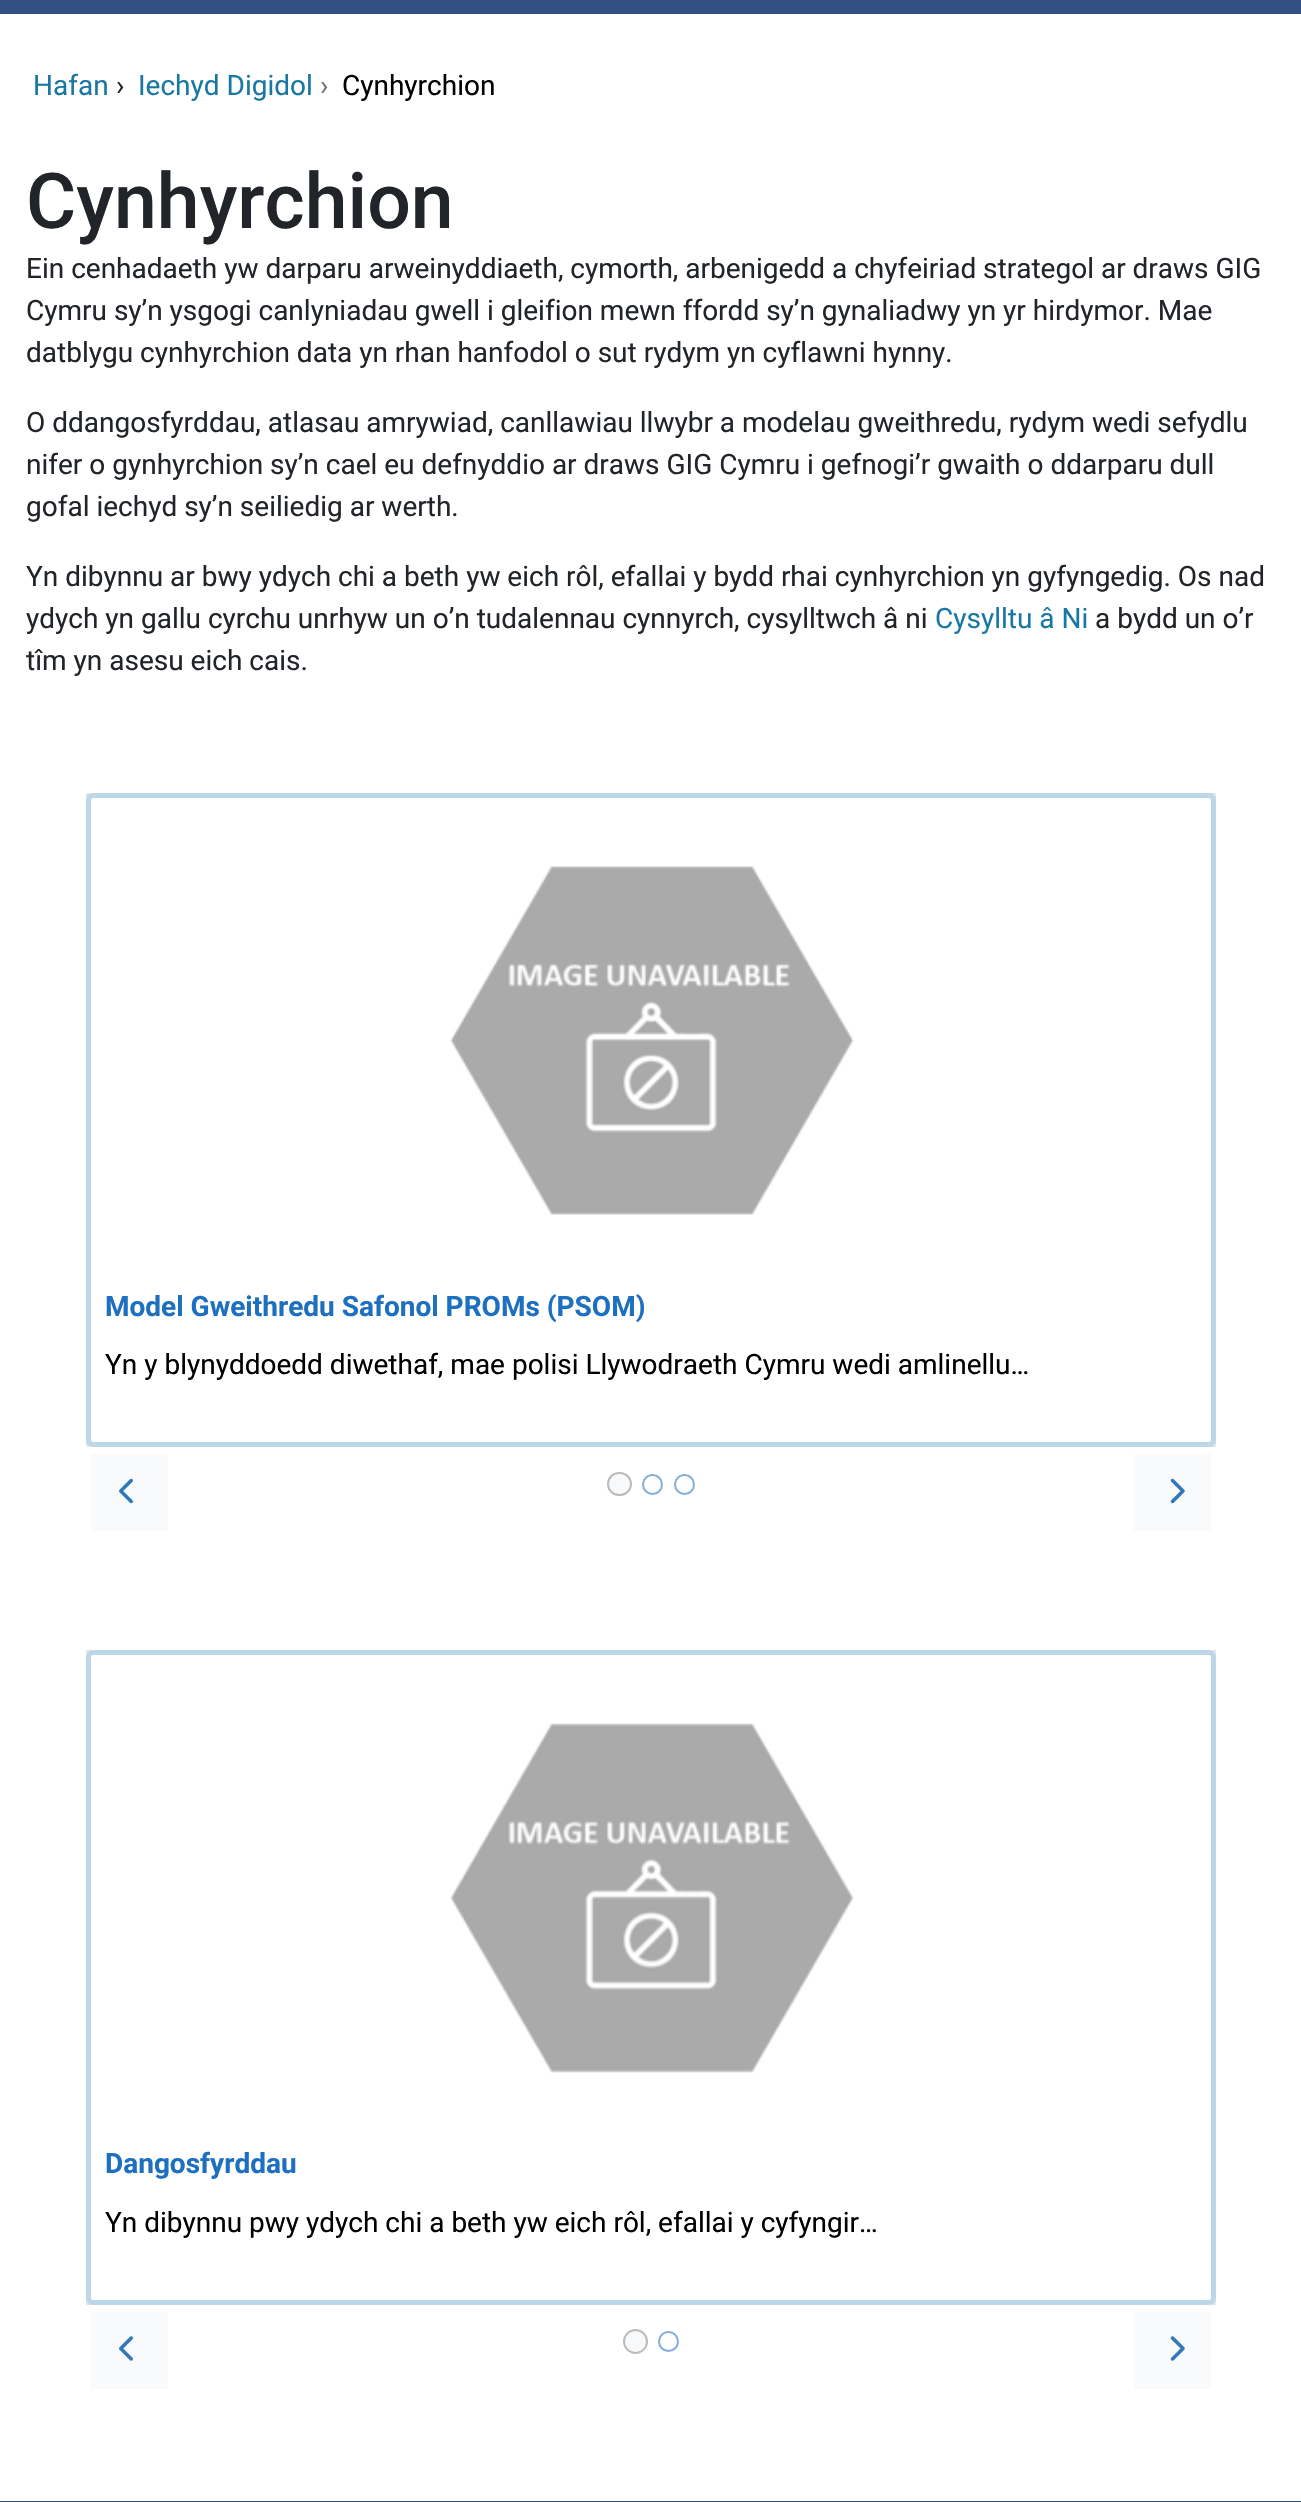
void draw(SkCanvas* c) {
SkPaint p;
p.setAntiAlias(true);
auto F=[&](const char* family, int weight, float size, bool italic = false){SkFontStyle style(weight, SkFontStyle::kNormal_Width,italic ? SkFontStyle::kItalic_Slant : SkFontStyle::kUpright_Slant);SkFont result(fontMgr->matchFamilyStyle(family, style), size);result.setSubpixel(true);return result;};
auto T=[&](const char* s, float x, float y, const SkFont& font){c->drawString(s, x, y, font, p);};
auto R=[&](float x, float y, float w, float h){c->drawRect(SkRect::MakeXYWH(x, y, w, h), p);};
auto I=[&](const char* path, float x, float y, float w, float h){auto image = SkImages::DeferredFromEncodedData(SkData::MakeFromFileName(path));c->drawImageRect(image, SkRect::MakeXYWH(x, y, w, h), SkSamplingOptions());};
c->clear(0xffffffff);
p.setColor(0xff325083);
R(0,0,1301,14);
auto f1 = F("Roboto",400,28);
p.setColor(0xff1978a3);
T("Hafan",33,95,f1);
p.setColor(0xff212529);
T("›",116,95,f1);
p.setColor(0xff1978a3);
T("Iechyd Digidol",138,95,f1);
p.setColor(0xff6c757d);
T("›",320,95,f1);
p.setColor(0xff000000);
T("Cynhyrchion",342,95,f1);
auto f2 = F("Roboto",500,77);
p.setColor(0xff212529);
T("Cynhyrchion",26,228,f2);
T("Ein cenhadaeth yw darparu arweinyddiaeth, cymorth, arbenigedd a chyfeiriad strategol ar draws GIG",26,278,f1);
T("Cymru sy’n ysgogi canlyniadau gwell i gleifion mewn ffordd sy’n gynaliadwy yn yr hirdymor. Mae",26,320,f1);
T("datblygu cynhyrchion data yn rhan hanfodol o sut rydym yn cyflawni hynny.",26,362,f1);
T("O ddangosfyrddau, atlasau amrywiad, canllawiau llwybr a modelau gweithredu, rydym wedi sefydlu",26,432,f1);
T("nifer o gynhyrchion sy’n cael eu defnyddio ar draws GIG Cymru i gefnogi’r gwaith o ddarparu dull",26,474,f1);
T("gofal iechyd sy’n seiliedig ar werth.",26,516,f1);
T("Yn dibynnu ar bwy ydych chi a beth yw eich rôl, efallai y bydd rhai cynhyrchion yn gyfyngedig. Os nad",26,586,f1);
T("ydych yn gallu cyrchu unrhyw un o’n tudalennau cynnyrch, cysylltwch â ni",26,628,f1);
p.setColor(0xff1978a3);
T("Cysylltu â Ni",935,628,f1);
p.setColor(0xff212529);
T("a bydd un o’r",1095,628,f1);
T("tîm yn asesu eich cais.",26,670,f1);
p.setColor(0xffe6e6e6);
R(86,793,1130,654);
p.setColor(0xffffffff);
c->drawRoundRect(SkRect::MakeXYWH(88.5,795.5,1125,649),4.5,4.5,p);
p.setStroke(true);
p.setStrokeWidth(5);
p.setColor(0xffbdd7ea);
c->drawRoundRect(SkRect::MakeXYWH(88.5,795.5,1125,649),4.5,4.5,p);
I("1.png",450,866,404,349);
auto f3 = F("Roboto",700,28);
p.setStroke(false);
p.setColor(0xff1d70c0);
T("Model Gweithredu Safonol PROMs (PSOM)",105,1316,f3);
p.setColor(0xff000000);
T("Yn y blynyddoedd diwethaf, mae polisi Llywodraeth Cymru wedi amlinellu…",105,1374,f1);
p.setColor(0xfff9fafb);
R(91,1454,77,77);
I("2.png",119,1478,14,26);
p.setColor(0xfff8f9fa);
c->drawRoundRect(SkRect::MakeXYWH(608,1473,23,22),11,11,p);
p.setStroke(true);
p.setStrokeWidth(2);
p.setColor(0xffbbbbbb);
c->drawRoundRect(SkRect::MakeXYWH(608,1473,23,22),11,11,p);
p.setColor(0xff81afdc);
c->drawCircle(652.5,1484.5,9.5,p);
c->drawCircle(684.5,1484.5,9.5,p);
p.setStroke(false);
p.setColor(0xfff9fafb);
R(1134,1454,77,77);
I("3.png",1170,1478,15,26);
p.setColor(0xffe6e6e6);
R(86,1650,1130,655);
p.setColor(0xffffffff);
c->drawRoundRect(SkRect::MakeXYWH(88.5,1652.5,1125,650),4.5,4.5,p);
p.setStroke(true);
p.setStrokeWidth(5);
p.setColor(0xffbdd7ea);
c->drawRoundRect(SkRect::MakeXYWH(88.5,1652.5,1125,650),4.5,4.5,p);
I("4.png",450,1723,404,350);
p.setStroke(false);
p.setColor(0xff1d70c0);
T("Dangosfyrddau",105,2173,f3);
p.setColor(0xff000000);
T("Yn dibynnu pwy ydych chi a beth yw eich rôl, efallai y cyfyngir…",105,2232,f1);
p.setColor(0xfff9fafb);
R(91,2312,77,77);
I("5.png",119,2336,14,25);
p.setColor(0xfff8f9fa);
c->drawCircle(635.5,2341.5,11.5,p);
p.setStroke(true);
p.setStrokeWidth(2);
p.setColor(0xffbbbbbb);
c->drawCircle(635.5,2341.5,11.5,p);
p.setColor(0xff81afdc);
c->drawCircle(668.5,2341.5,9.5,p);
p.setStroke(false);
p.setColor(0xfff9fafb);
R(1134,2312,77,77);
I("6.png",1170,2336,15,25);
p.setColor(0xff325083);
R(0,2501,1301,1);
}
